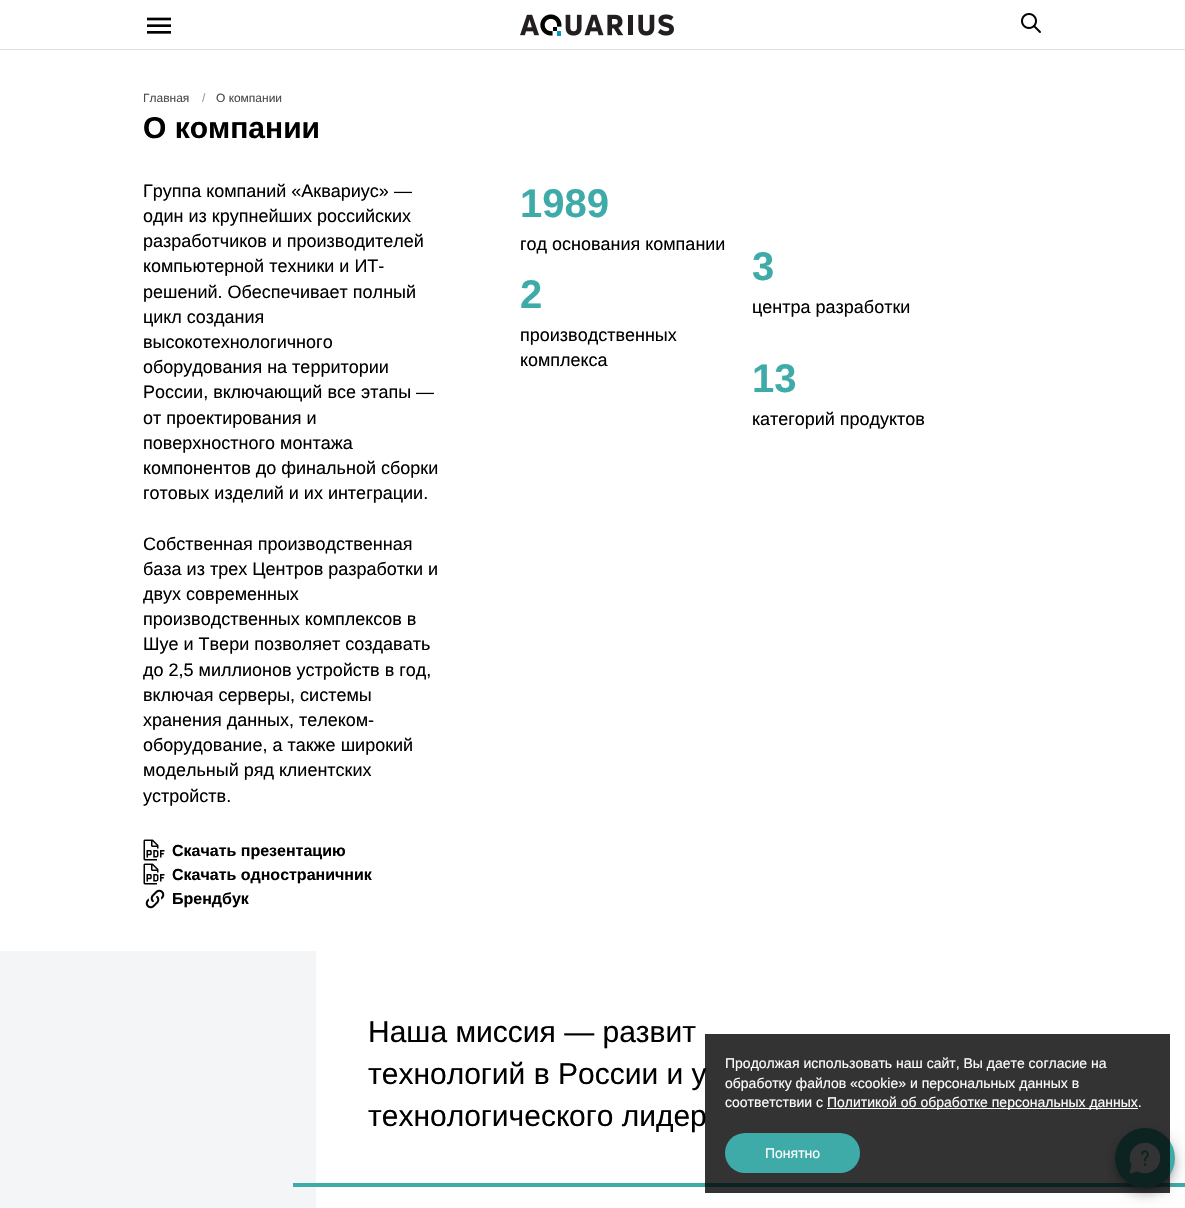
void draw(SkCanvas* c) {
SkPaint p;
p.setAntiAlias(true);
auto F=[&](const char* family, int weight, float size, bool italic = false){SkFontStyle style(weight, SkFontStyle::kNormal_Width,italic ? SkFontStyle::kItalic_Slant : SkFontStyle::kUpright_Slant);SkFont result(fontMgr->matchFamilyStyle(family, style), size);result.setSubpixel(true);return result;};
auto T=[&](const char* s, float x, float y, const SkFont& font){c->drawString(s, x, y, font, p);};
auto R=[&](float x, float y, float w, float h){c->drawRect(SkRect::MakeXYWH(x, y, w, h), p);};
auto Q=[&](float x, float y, float w, float h, float radius){c->drawRoundRect(SkRect::MakeXYWH(x, y, w, h), radius, radius, p);};
auto I=[&](const char* path, float x, float y, float w, float h){auto image = SkImages::DeferredFromEncodedData(SkData::MakeFromFileName(path));c->drawImageRect(image, SkRect::MakeXYWH(x, y, w, h), SkSamplingOptions());};
c->clear(0xffffffff);
p.setColor(0xffe0e0e0);
R(0,49,1185,1);
I("1.png",147,17,24,17);
I("2.png",520,14,154,22);
I("3.png",1021,13,20,20);
auto f1 = F("Liberation Sans",400,12);
p.setColor(0xff4a4a49);
T("Главная",143,102,f1);
p.setColor(0xff999999);
T("/",202,102,f1);
p.setColor(0xff4a4a49);
T("О компании",216,102,f1);
auto f2 = F("Liberation Sans",700,30);
p.setColor(0xff000000);
T("О компании",143,138,f2);
auto f3 = F("Liberation Sans",400,18);
T("Группа компаний «Аквариус» —",143,197,f3);
T("один из крупнейших российских",143,222,f3);
T("разработчиков и производителей",143,247,f3);
T("компьютерной техники и ИТ-",143,272,f3);
T("решений. Обеспечивает полный",143,298,f3);
T("цикл создания",143,323,f3);
T("высокотехнологичного",143,348,f3);
T("оборудования на территории",143,373,f3);
T("России, включающий все этапы —",143,398,f3);
T("от проектирования и",143,424,f3);
T("поверхностного монтажа",143,449,f3);
T("компонентов до финальной сборки",143,474,f3);
T("готовых изделий и их интеграции.",143,499,f3);
T("Собственная производственная",143,550,f3);
T("база из трех Центров разработки и",143,575,f3);
T("двух современных",143,600,f3);
T("производственных комплексов в",143,625,f3);
T("Шуе и Твери позволяет создавать",143,650,f3);
T("до 2,5 миллионов устройств в год,",143,676,f3);
T("включая серверы, системы",143,701,f3);
T("хранения данных, телеком-",143,726,f3);
T("оборудование, а также широкий",143,751,f3);
T("модельный ряд клиентских",143,776,f3);
T("устройств.",143,802,f3);
I("4.png",143,839,22,22);
auto f4 = F("Liberation Sans",700,16);
T("Скачать презентацию",172,856,f4);
I("4.png",143,863,22,22);
T("Скачать одностраничник",172,880,f4);
I("5.png",145,889,20,20);
T("Брендбук",172,904,f4);
auto f5 = F("Liberation Sans",700,40);
p.setColor(0xff3faba9);
T("1989",520,217,f5);
p.setColor(0xff000000);
T("год основания компании",520,250,f3);
p.setColor(0xff3faba9);
T("2",520,308,f5);
p.setColor(0xff000000);
T("производственных",520,341,f3);
T("комплекса",520,366,f3);
p.setColor(0xff3faba9);
T("3",752,280,f5);
p.setColor(0xff000000);
T("центра разработки",752,313,f3);
p.setColor(0xff3faba9);
T("13",752,392,f5);
p.setColor(0xff000000);
T("категорий продуктов",752,425,f3);
p.setColor(0xfff4f5f6);
R(0,951,316,257);
auto f6 = F("Liberation Sans",400,30);
p.setColor(0xff000000);
T("Наша миссия — развит",368,1042,f6);
T("технологий в России и у",368,1084,f6);
T("технологического лидер",368,1126,f6);
p.setColor(0xff3faba9);
R(293,1183,892,4);
p.setColor(0x1f000000);
p.setMaskFilter(SkMaskFilter::MakeBlur(kNormal_SkBlurStyle, 8));
c->drawRoundRect(SkRect::MakeXYWH(1114,1129,62,62),31,31,p);
p.setMaskFilter(nullptr);
p.setColor(0x24000000);
p.setMaskFilter(SkMaskFilter::MakeBlur(kNormal_SkBlurStyle, 5));
c->drawRoundRect(SkRect::MakeXYWH(1114,1134,62,62),31,31,p);
p.setMaskFilter(nullptr);
p.setColor(0x33000000);
p.setMaskFilter(SkMaskFilter::MakeBlur(kNormal_SkBlurStyle, 2.5));
c->drawRoundRect(SkRect::MakeXYWH(1117,1134,56,56),28,28,p);
p.setMaskFilter(nullptr);
p.setColor(0xff3faba9);
c->drawCircle(1145,1158,30,p);
I("6.png",1129,1142,32,32);
p.setColor(0xcc000000);
R(705,1034,465,159);
auto f7 = F("Liberation Sans",400,14);
p.setColor(0xffffffff);
T("Продолжая использовать наш сайт, Вы даете согласие на",725,1068,f7);
T("обработку файлов «cookie» и персональных данных в",725,1088,f7);
T("соответствии с",725,1107,f7);
R(827,1108,311,1);
T("Политикой об обработке персональных данных.",827,1107,f7);
p.setColor(0xff3faba9);
Q(725,1133,135,40,20);
p.setColor(0xffffffff);
T("Понятно",765,1158,f7);
}
